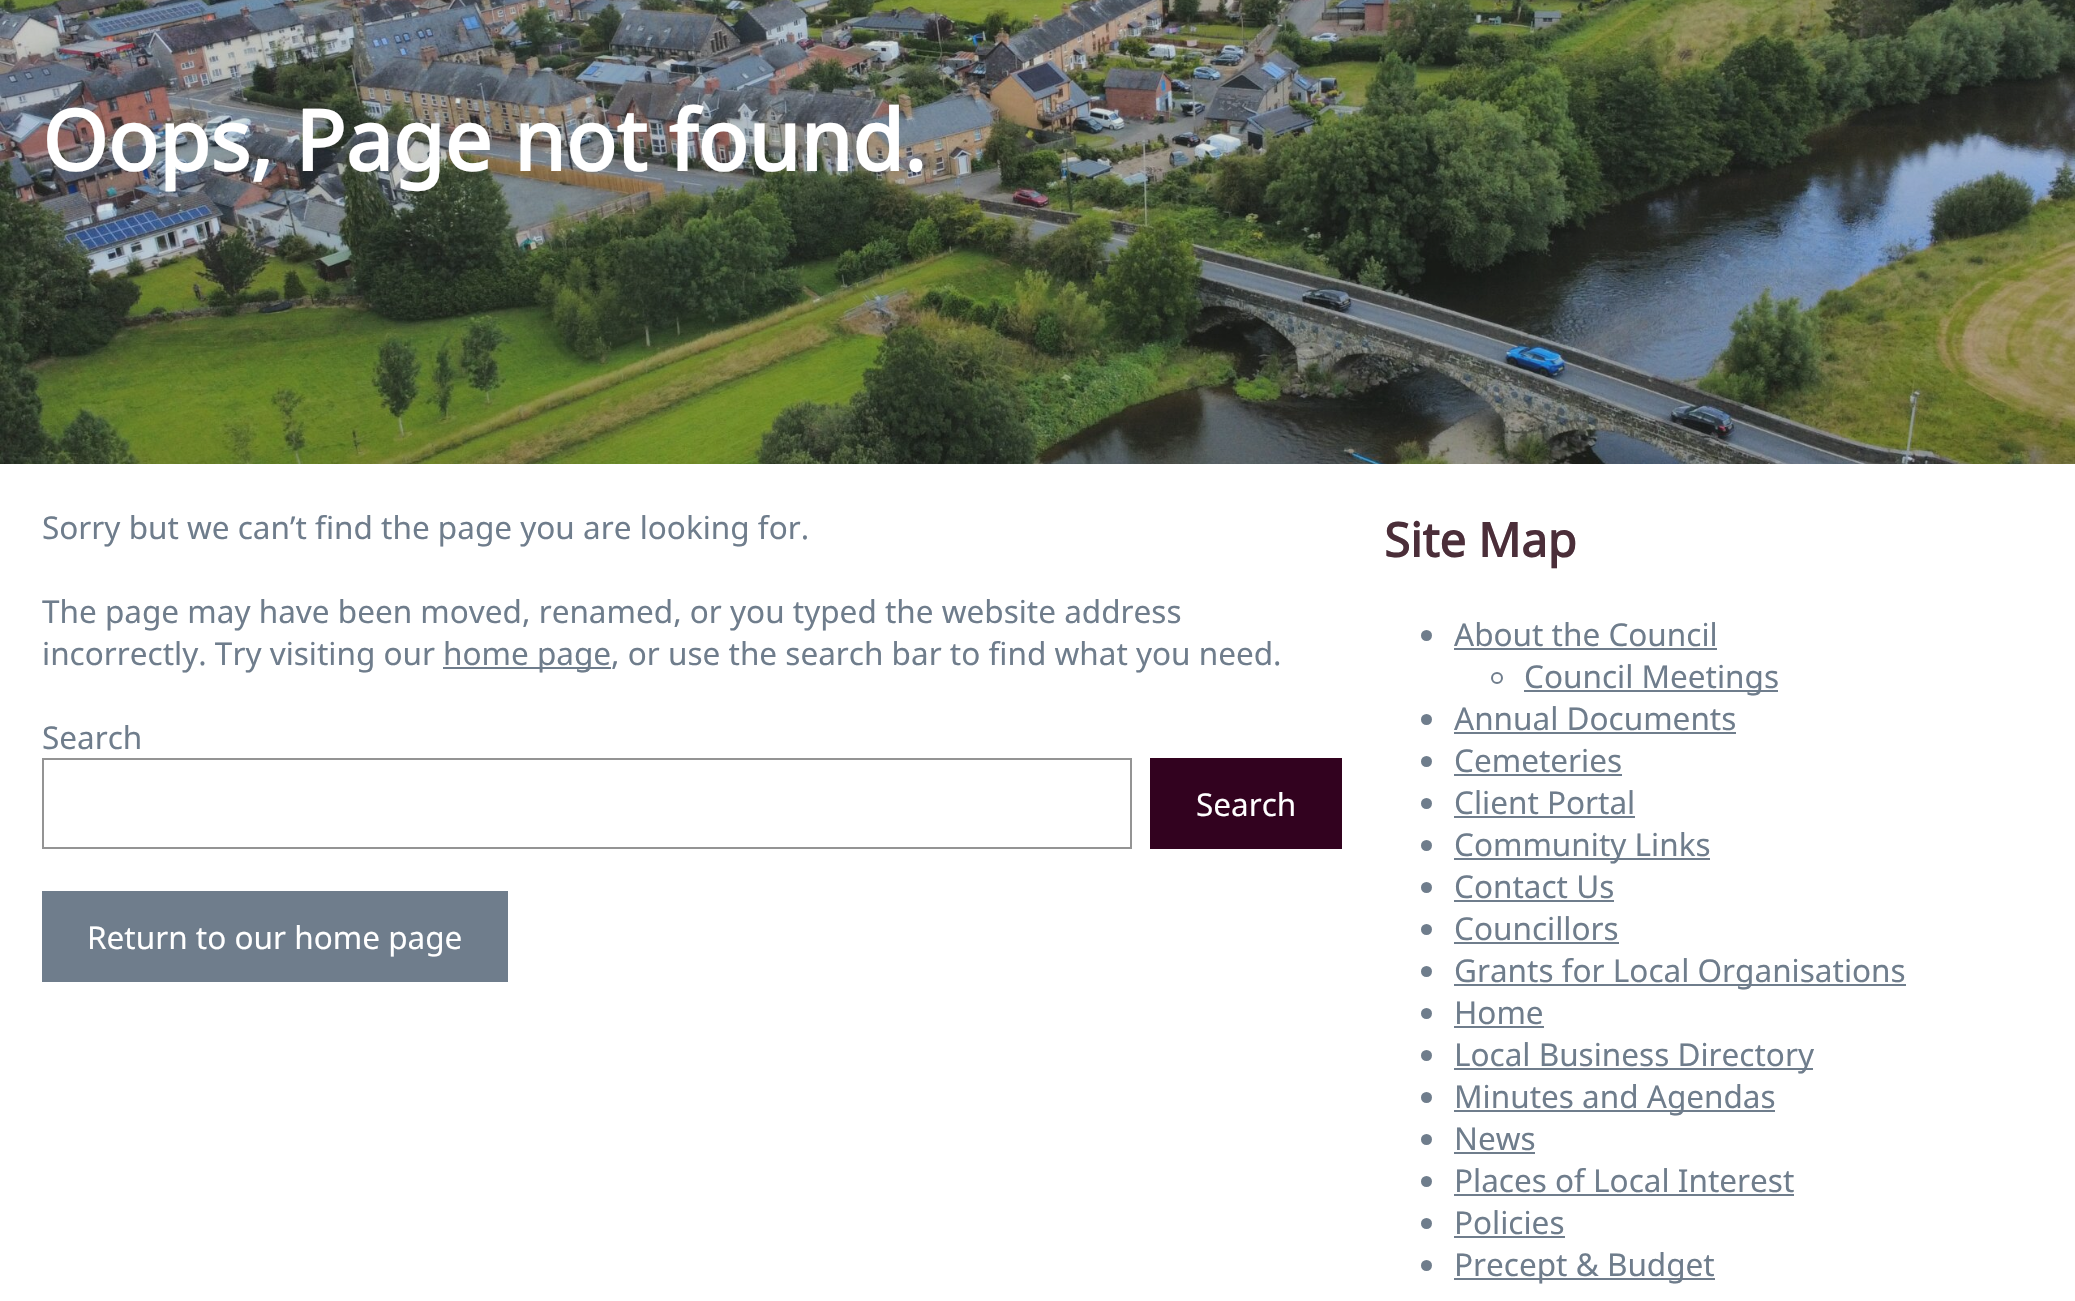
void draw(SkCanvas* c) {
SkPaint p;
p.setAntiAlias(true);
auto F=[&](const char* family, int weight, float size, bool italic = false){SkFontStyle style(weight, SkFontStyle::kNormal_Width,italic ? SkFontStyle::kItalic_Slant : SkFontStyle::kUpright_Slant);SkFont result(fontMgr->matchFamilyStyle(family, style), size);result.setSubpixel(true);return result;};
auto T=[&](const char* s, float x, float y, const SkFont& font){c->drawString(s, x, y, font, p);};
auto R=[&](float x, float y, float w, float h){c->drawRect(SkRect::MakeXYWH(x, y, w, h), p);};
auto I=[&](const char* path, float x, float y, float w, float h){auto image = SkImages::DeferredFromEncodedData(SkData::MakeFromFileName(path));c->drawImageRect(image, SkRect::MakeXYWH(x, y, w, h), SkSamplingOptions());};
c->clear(0xffffffff);
I("1.png",0,0,2075,464);
auto f1 = F("Noto Sans",700,84);
p.setColor(0xffffffff);
T("Oops, Page not found.",42,171,f1);
auto f2 = F("Noto Sans",400,31.5);
p.setColor(0xff6f7d8c);
T("Sorry but we can’t find the page you are looking for.",42,539,f2);
T("The page may have been moved, renamed, or you typed the website address",42,623,f2);
T("incorrectly. Try visiting our",42,665,f2);
R(443,667,168,2);
T("home page, or use the search bar to find what you need.",443,665,f2);
T("Search",42,749,f2);
p.setStroke(true);
p.setStrokeWidth(2);
p.setColor(0xff949494);
c->drawRect(SkRect::MakeXYWH(43,759,1088,89),p);
p.setStroke(false);
p.setColor(0xff32021f);
R(1150,758,192,91);
p.setColor(0xffffffff);
T("Search",1196,816,f2);
p.setColor(0xff6f7d8c);
R(42,891,466,91);
p.setColor(0xffffffff);
T("Return to our home page",87,949,f2);
auto f3 = F("Noto Sans",700,47.25);
p.setColor(0xff4b2e39);
T("Site Map",1384,557,f3);
p.setColor(0xff6f7d8c);
c->drawCircle(1426.5,635.5,5.5,p);
T("About the Council",1454,646,f2);
R(1454,648,263,2);
p.setStroke(true);
c->drawCircle(1497,678,5,p);
p.setStroke(false);
R(1524,690,254,2);
T("Council Meetings",1524,688,f2);
c->drawCircle(1426.5,719.5,5.5,p);
T("Annual Documents",1454,730,f2);
R(1454,732,282,2);
c->drawCircle(1426.5,761.5,5.5,p);
T("Cemeteries",1454,772,f2);
R(1454,774,168,2);
c->drawCircle(1426.5,803.5,5.5,p);
T("Client Portal",1454,814,f2);
R(1454,816,181,2);
c->drawCircle(1426.5,845.5,5.5,p);
R(1454,858,256,2);
T("Community Links",1454,856,f2);
c->drawCircle(1426.5,887.5,5.5,p);
T("Contact Us",1454,898,f2);
R(1454,900,160,2);
c->drawCircle(1426.5,929.5,5.5,p);
T("Councillors",1454,940,f2);
R(1454,942,165,2);
c->drawCircle(1426.5,971.5,5.5,p);
R(1454,984,452,2);
T("Grants for Local Organisations",1454,982,f2);
c->drawCircle(1426.5,1013.5,5.5,p);
T("Home",1454,1024,f2);
R(1454,1026,90,2);
c->drawCircle(1426.5,1055.5,5.5,p);
R(1454,1068,359,2);
T("Local Business Directory",1454,1066,f2);
c->drawCircle(1426.5,1097.5,5.5,p);
R(1454,1110,321,2);
T("Minutes and Agendas",1454,1108,f2);
c->drawCircle(1426.5,1139.5,5.5,p);
T("News",1454,1150,f2);
R(1454,1152,81,2);
c->drawCircle(1426.5,1181.5,5.5,p);
T("Places of Local Interest",1454,1192,f2);
R(1454,1194,340,2);
c->drawCircle(1426.5,1223.5,5.5,p);
T("Policies",1454,1234,f2);
R(1454,1236,111,2);
c->drawCircle(1426.5,1265.5,5.5,p);
R(1454,1278,261,2);
T("Precept & Budget",1454,1276,f2);
}
